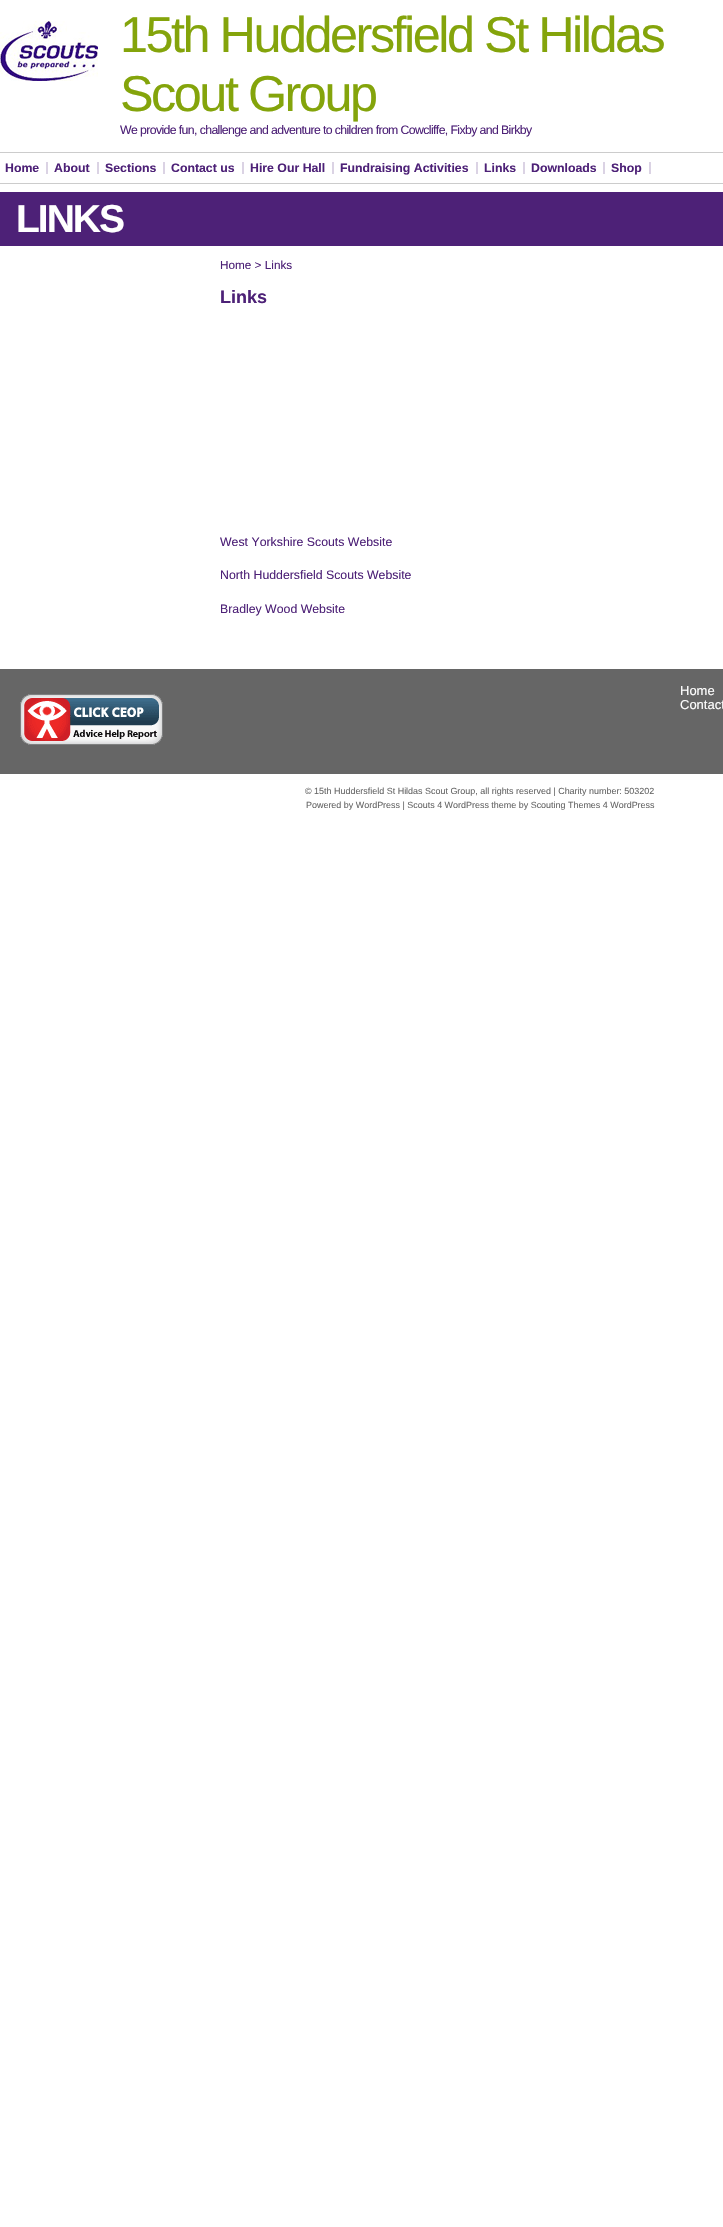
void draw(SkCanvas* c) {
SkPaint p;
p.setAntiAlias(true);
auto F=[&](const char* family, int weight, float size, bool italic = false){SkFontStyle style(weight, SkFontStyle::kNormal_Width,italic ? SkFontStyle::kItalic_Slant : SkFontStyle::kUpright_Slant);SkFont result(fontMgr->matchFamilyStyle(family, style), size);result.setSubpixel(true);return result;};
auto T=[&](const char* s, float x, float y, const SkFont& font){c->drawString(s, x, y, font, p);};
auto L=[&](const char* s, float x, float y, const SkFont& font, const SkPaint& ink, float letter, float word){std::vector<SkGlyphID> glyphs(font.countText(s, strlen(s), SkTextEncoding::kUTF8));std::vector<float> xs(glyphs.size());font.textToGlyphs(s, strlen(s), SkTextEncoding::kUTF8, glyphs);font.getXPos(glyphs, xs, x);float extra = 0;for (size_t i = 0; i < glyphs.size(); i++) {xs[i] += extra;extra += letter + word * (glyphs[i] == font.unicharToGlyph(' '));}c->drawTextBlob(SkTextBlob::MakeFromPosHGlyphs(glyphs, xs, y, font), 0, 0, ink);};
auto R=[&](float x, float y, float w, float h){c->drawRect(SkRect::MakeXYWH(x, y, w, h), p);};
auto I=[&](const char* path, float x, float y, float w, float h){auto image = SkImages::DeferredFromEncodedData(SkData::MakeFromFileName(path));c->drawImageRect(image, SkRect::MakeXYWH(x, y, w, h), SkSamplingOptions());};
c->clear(0xffffffff);
I("1.png",0,21,98,60);
auto f1 = F("Liberation Sans",400,50.4);
p.setColor(0xff84a40b);
L("15th Huddersfield St Hildas",120,52,f1,p,-2.5,0);
L("Scout Group",120,111,f1,p,-2.5,0);
auto f2 = F("Liberation Sans",400,12.3);
p.setColor(0xff4d2177);
L("We provide fun, challenge and adventure to children from Cowcliffe, Fixby and Birkby",120,134,f2,p,-.62,0);
p.setColor(0xffcccccc);
R(0,152,723,1);
R(0,183,723,1);
p.setColor(0xffdbd3e4);
R(46,162,2,12);
auto f3 = F("Liberation Sans",700,12.3);
p.setColor(0xff4d2177);
T("Home",5,172,f3);
p.setColor(0xffdbd3e4);
R(97,162,2,12);
p.setColor(0xff4d2177);
T("About",54,172,f3);
p.setColor(0xffdbd3e4);
R(163,162,2,12);
p.setColor(0xff4d2177);
T("Sections",105,172,f3);
p.setColor(0xffdbd3e4);
R(242,162,2,12);
p.setColor(0xff4d2177);
T("Contact us",171,172,f3);
p.setColor(0xffdbd3e4);
R(332,162,2,12);
p.setColor(0xff4d2177);
T("Hire Our Hall",250,172,f3);
p.setColor(0xffdbd3e4);
R(476,162,2,12);
p.setColor(0xff4d2177);
T("Fundraising Activities",340,172,f3);
p.setColor(0xffdbd3e4);
R(523,162,2,12);
p.setColor(0xff4d2177);
T("Links",484,172,f3);
p.setColor(0xffdbd3e4);
R(603,162,2,12);
p.setColor(0xff4d2177);
T("Downloads",531,172,f3);
p.setColor(0xffdbd3e4);
R(649,162,2,12);
p.setColor(0xff4d2177);
T("Shop",611,172,f3);
R(0,192,723,54);
auto f4 = F("Liberation Sans",700,39);
p.setColor(0xffffffff);
L("LINKS",16,232,f4,p,-2,0);
auto f5 = F("Liberation Sans",400,11.75);
p.setColor(0xff4d2177);
T("Home > Links",220,269,f5);
auto f6 = F("Liberation Sans",700,18);
T("Links",220,303,f6);
T("West Yorkshire Scouts Website",220,546,f2);
T("North Huddersfield Scouts Website",220,579,f2);
T("Bradley Wood Website",220,613,f2);
p.setColor(0xff666666);
R(0,669,723,105);
I("2.png",20,694,143,51);
auto f7 = F("Liberation Sans",400,13);
p.setColor(0xffffffff);
T("Home",680,695,f7);
T("Contact",680,709,f7);
auto f8 = F("Liberation Sans",400,8.95);
p.setColor(0xff656565);
T("© 15th Huddersfield St Hildas Scout Group, all rights reserved | Charity number: 503202",305,794,f8);
T("Powered by WordPress | Scouts 4 WordPress theme by Scouting Themes 4 WordPress",306,808,f8);
}
